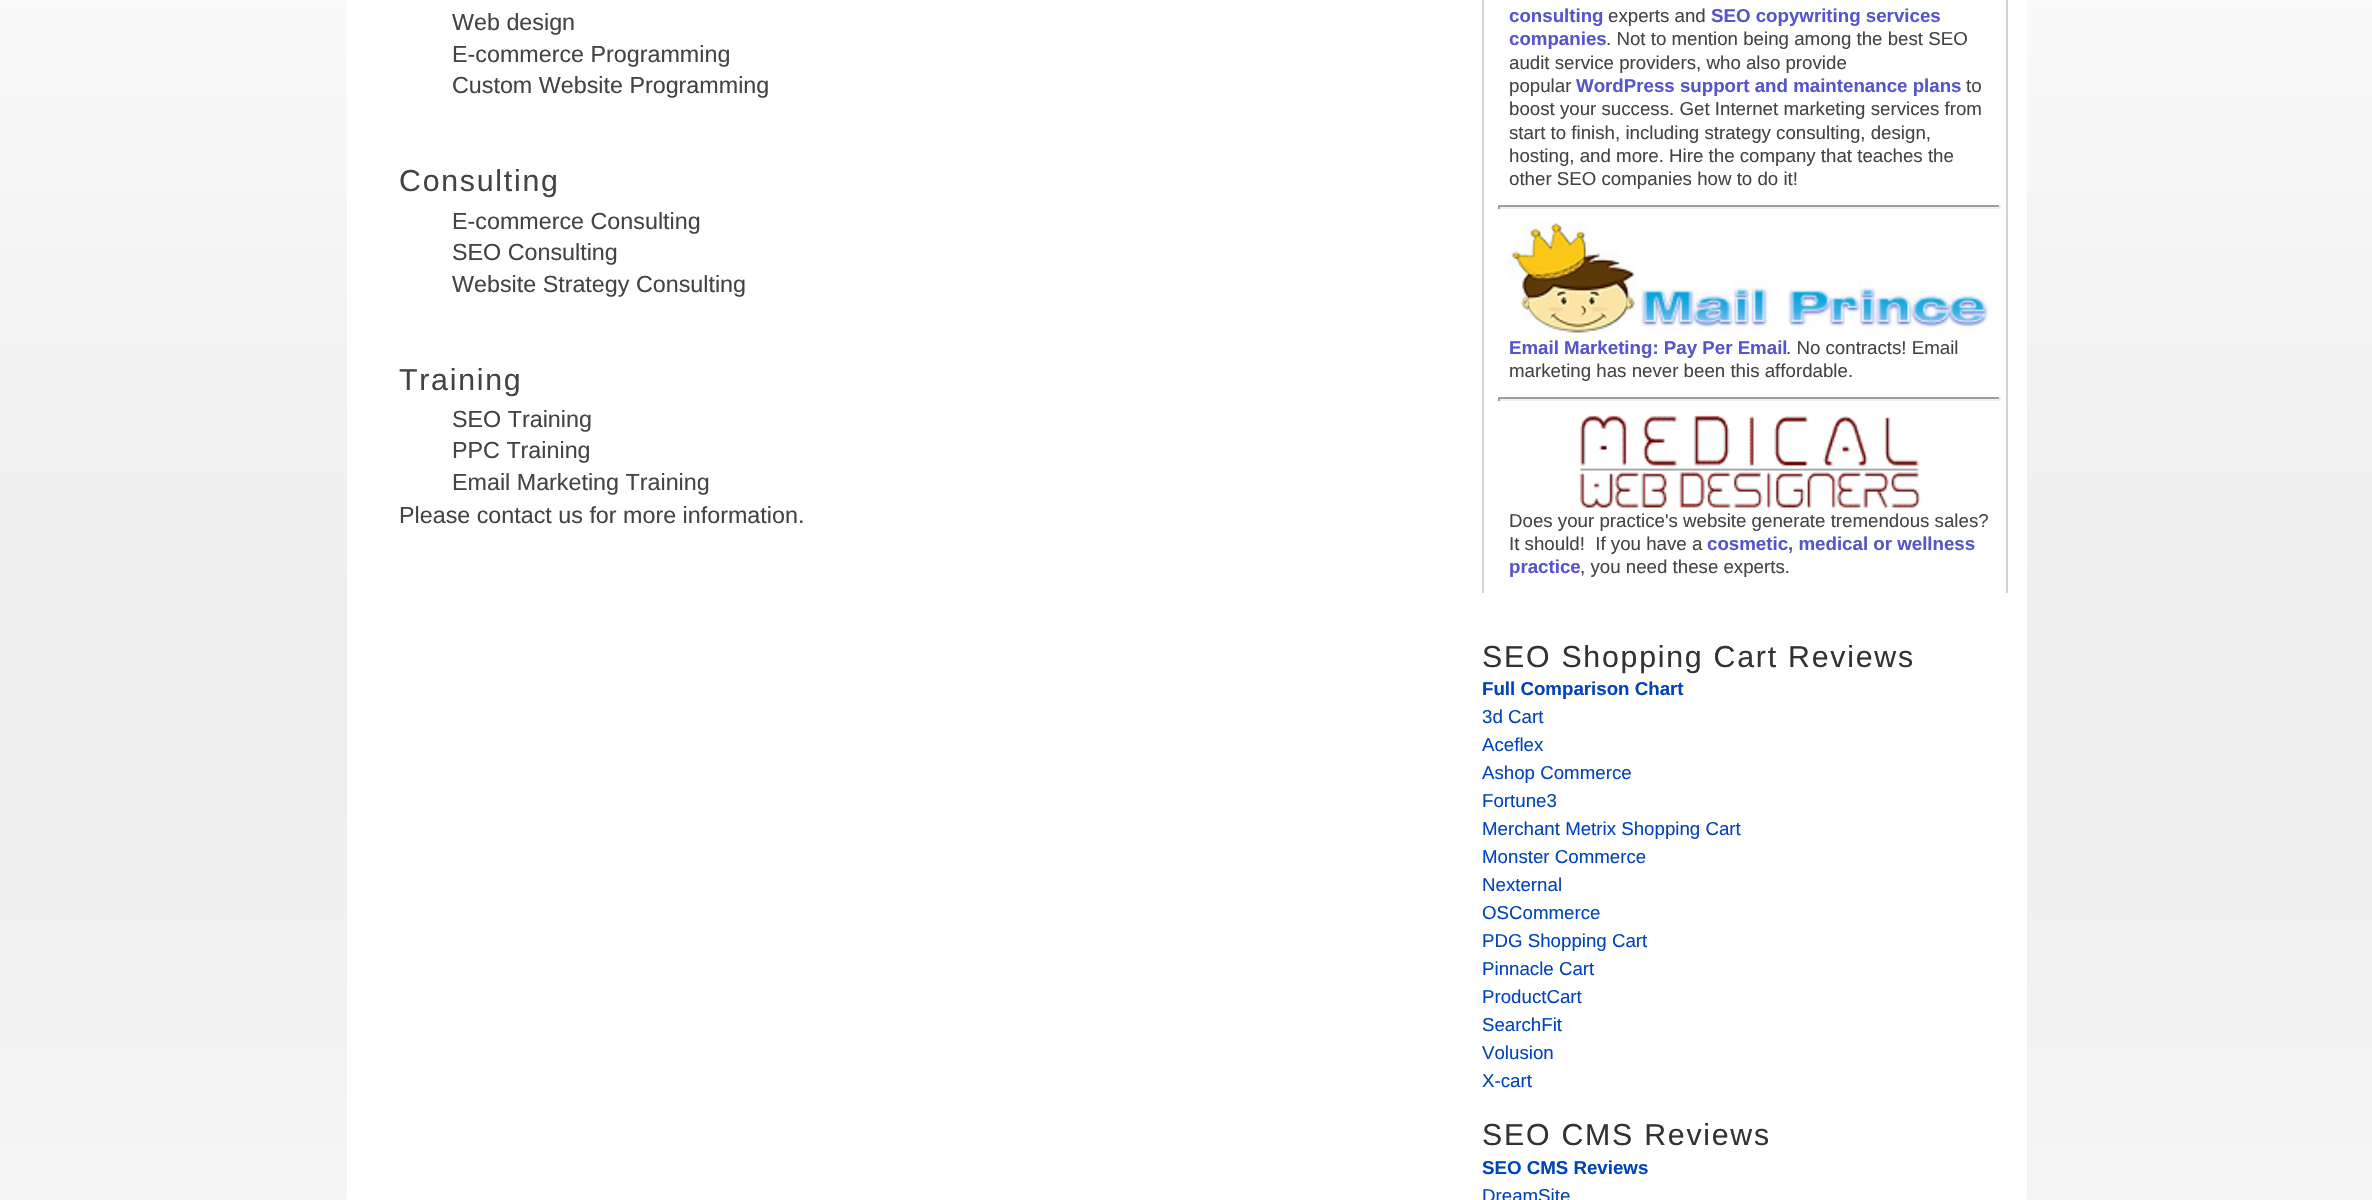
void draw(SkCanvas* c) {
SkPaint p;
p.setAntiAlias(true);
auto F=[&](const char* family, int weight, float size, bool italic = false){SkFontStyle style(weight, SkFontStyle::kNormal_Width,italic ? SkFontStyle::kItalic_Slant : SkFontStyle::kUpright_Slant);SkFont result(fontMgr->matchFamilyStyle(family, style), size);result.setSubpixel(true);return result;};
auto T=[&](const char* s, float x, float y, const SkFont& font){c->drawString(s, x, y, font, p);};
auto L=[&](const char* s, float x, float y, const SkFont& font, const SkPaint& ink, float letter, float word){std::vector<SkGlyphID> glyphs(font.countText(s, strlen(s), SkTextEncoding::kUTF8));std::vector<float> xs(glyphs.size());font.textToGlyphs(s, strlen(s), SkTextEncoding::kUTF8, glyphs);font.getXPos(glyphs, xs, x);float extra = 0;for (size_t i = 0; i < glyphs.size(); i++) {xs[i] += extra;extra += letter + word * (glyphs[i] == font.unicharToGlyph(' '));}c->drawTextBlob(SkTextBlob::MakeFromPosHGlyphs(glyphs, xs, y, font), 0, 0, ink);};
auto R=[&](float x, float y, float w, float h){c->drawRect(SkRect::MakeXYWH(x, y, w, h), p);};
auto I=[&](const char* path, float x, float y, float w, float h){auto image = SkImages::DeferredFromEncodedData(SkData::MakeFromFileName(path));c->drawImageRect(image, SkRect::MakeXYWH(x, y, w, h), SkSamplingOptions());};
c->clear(0xffffffff);
I("1.png",0,0,2372,1200);
p.setColor(0xffffffff);
R(347,0,1680,1200);
auto f1 = F("Liberation Sans",400,23.3);
p.setColor(0xff444444);
T("Web design",452,30,f1);
T("E-commerce Programming",452,62,f1);
T("Custom Website Programming",452,93,f1);
auto f2 = F("Liberation Sans",400,30.3);
L("Consulting",399,191,f2,p,1.75,0);
T("E-commerce Consulting",452,229,f1);
T("SEO Consulting",452,260,f1);
T("Website Strategy Consulting",452,292,f1);
L("Training",399,390,f2,p,1.75,0);
T("SEO Training",452,427,f1);
T("PPC Training",452,458,f1);
T("Email Marketing Training",452,490,f1);
T("Please contact us for more information.",399,523,f1);
p.setColor(0xffd3d3d3);
R(2006,0,2,593);
R(1482,0,2,593);
auto f3 = F("Liberation Sans",700,18.7);
p.setColor(0xff5555cc);
T("consulting",1509,22,f3);
auto f4 = F("Liberation Sans",400,18.7);
p.setColor(0xff444444);
T("experts and",1608,22,f4);
p.setColor(0xff5555cc);
T("SEO copywriting services",1711,22,f3);
T("companies",1509,45,f3);
p.setColor(0xff444444);
T(". Not to mention being among the best SEO",1606,45,f4);
T("audit service providers, who also provide",1509,69,f4);
T("popular",1509,92,f4);
p.setColor(0xff5555cc);
T("WordPress support and maintenance plans",1576,92,f3);
p.setColor(0xff444444);
T("to",1966,92,f4);
T("boost your success. Get Internet marketing services from",1509,115,f4);
T("start to finish, including strategy consulting, design,",1509,139,f4);
T("hosting, and more. Hire the company that teaches the",1509,162,f4);
T("other SEO companies how to do it!",1509,185,f4);
p.setColor(0xff9f9f9f);
R(1498,205,502,2);
p.setColor(0xffeeeeee);
R(1999,205,2,4);
R(1498,207,502,2);
p.setColor(0xff9f9f9f);
R(1498,205,2,4);
I("2.png",1508,222,481,112);
p.setColor(0xff5555cc);
T("Email Marketing: Pay Per Email",1509,354,f3);
p.setColor(0xff444444);
T(". No contracts! Email",1786,354,f4);
T("marketing has never been this affordable.",1509,377,f4);
p.setColor(0xff9f9f9f);
R(1498,397,502,2);
p.setColor(0xffeeeeee);
R(1999,397,2,4);
R(1498,399,502,2);
p.setColor(0xff9f9f9f);
R(1498,397,2,4);
I("3.png",1579,415,342,93);
p.setColor(0xff444444);
T("Does your practice's website generate tremendous sales?",1509,527,f4);
T("It should!  If you have a",1509,550,f4);
p.setColor(0xff5555cc);
T("cosmetic, medical or wellness",1707,550,f3);
T("practice",1509,573,f3);
p.setColor(0xff444444);
T(", you need these experts.",1580,573,f4);
p.setColor(0xff333333);
L("SEO Shopping Cart Reviews",1482,667,f2,p,1.75,0);
p.setColor(0xff0044bb);
T("Full Comparison Chart",1482,695,f3);
T("3d Cart",1482,723,f4);
T("Aceflex",1482,751,f4);
T("Ashop Commerce",1482,779,f4);
T("Fortune3",1482,807,f4);
T("Merchant Metrix Shopping Cart",1482,835,f4);
T("Monster Commerce",1482,863,f4);
T("Nexternal",1482,891,f4);
T("OSCommerce",1482,919,f4);
T("PDG Shopping Cart",1482,947,f4);
T("Pinnacle Cart",1482,975,f4);
T("ProductCart",1482,1003,f4);
T("SearchFit",1482,1031,f4);
T("Volusion",1482,1059,f4);
T("X-cart",1482,1087,f4);
p.setColor(0xff333333);
L("SEO CMS Reviews",1482,1145,f2,p,1.75,0);
p.setColor(0xff0044bb);
T("SEO CMS Reviews",1482,1174,f3);
T("DreamSite",1482,1202,f4);
}
